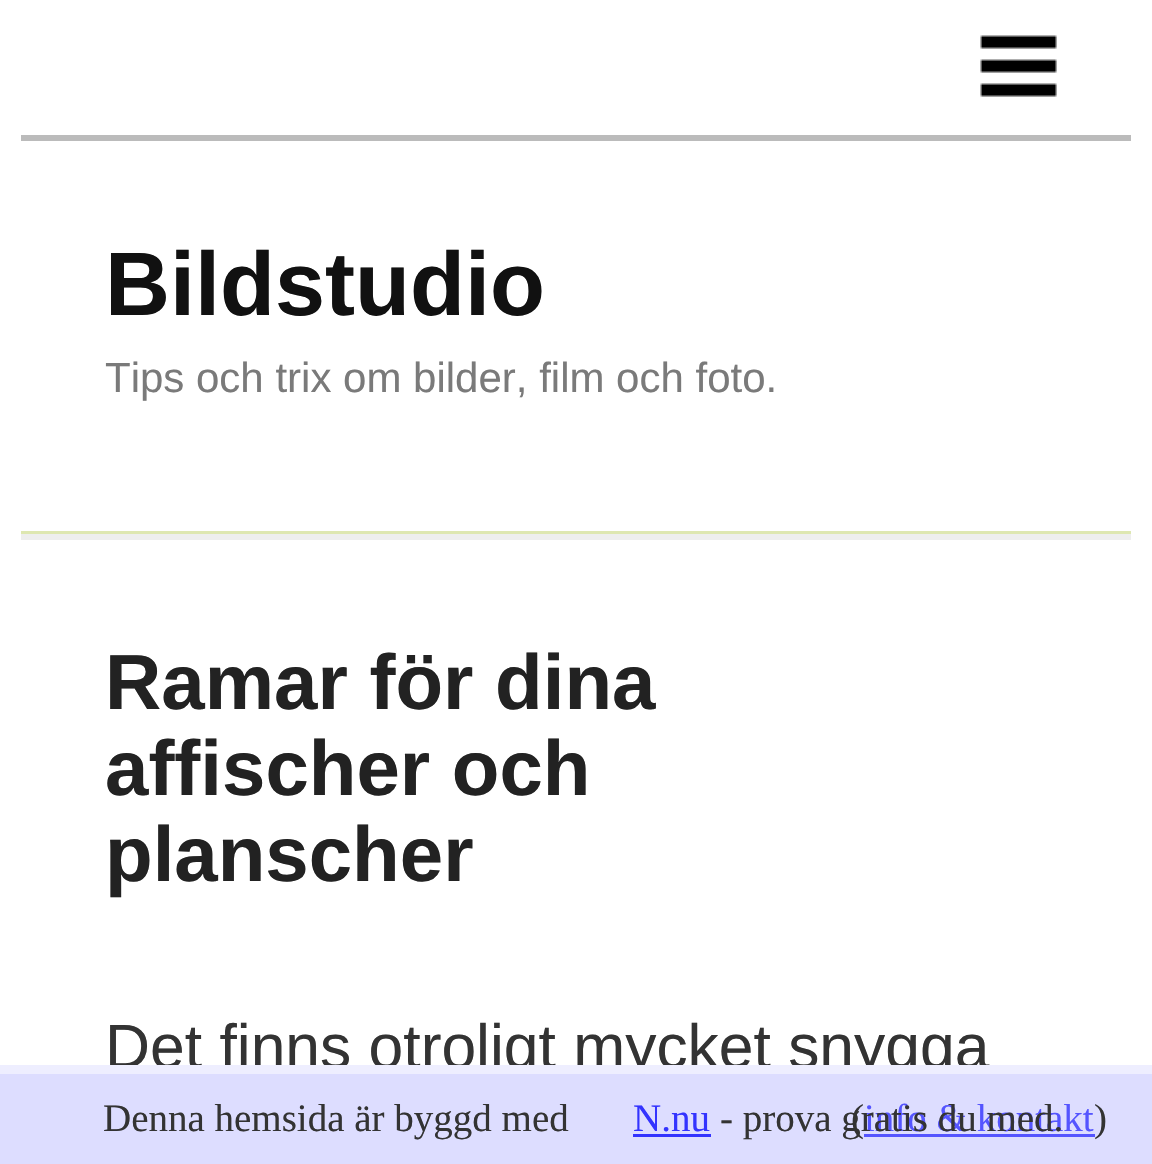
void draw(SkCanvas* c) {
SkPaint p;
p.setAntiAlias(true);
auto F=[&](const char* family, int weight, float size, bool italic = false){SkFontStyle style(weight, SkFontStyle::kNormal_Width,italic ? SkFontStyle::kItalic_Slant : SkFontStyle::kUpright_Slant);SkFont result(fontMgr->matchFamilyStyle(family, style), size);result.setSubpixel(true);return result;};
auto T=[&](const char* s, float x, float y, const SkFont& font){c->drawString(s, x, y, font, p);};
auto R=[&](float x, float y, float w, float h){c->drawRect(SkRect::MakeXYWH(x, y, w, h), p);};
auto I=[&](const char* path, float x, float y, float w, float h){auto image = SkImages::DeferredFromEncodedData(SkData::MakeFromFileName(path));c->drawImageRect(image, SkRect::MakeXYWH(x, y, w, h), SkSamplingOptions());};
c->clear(0xffffffff);
p.setColor(0xff000000);
R(980,35,77,62);
I("1.png",927,12,180,108);
p.setColor(0xffbbbbbb);
R(21,135,1110,6);
auto f1 = F("Liberation Sans",700,90);
p.setColor(0xff111111);
T("Bildstudio",105,315,f1);
auto f2 = F("Liberation Sans",400,42);
p.setColor(0xff7a7a7a);
T("Tips och trix om bilder, film och foto.",105,392,f2);
p.setColor(0xffdee7b1);
R(21,531,1110,3);
p.setColor(0xffeeeeee);
R(21,534,1110,6);
auto f3 = F("Liberation Sans",700,78);
p.setColor(0xff222222);
T("Ramar för dina",105,709,f3);
T("affischer och",105,795,f3);
T("planscher",105,881,f3);
auto f4 = F("Liberation Sans",400,62.4);
p.setColor(0xff333333);
T("Det finns otroligt mycket snygga",105,1068,f4);
p.setColor(0xffddddff);
R(0,1074,1152,90);
p.setColor(0xffeeeeff);
R(0,1065,1152,9);
auto f5 = F("Liberation Serif",400,39);
p.setColor(0xff333333);
T("Denna hemsida är byggd med",103,1131,f5);
T("(",851,1131,f5);
p.setColor(0xff5555ff);
T("info & kontakt",864,1131,f5);
R(864,1134,231,3);
p.setColor(0xff333333);
T("- prova gratis du med.",720,1131,f5);
p.setColor(0xff3333ff);
T("N.nu",633,1131,f5);
R(633,1134,78,3);
p.setColor(0xff333333);
T(")",1094,1131,f5);
}
